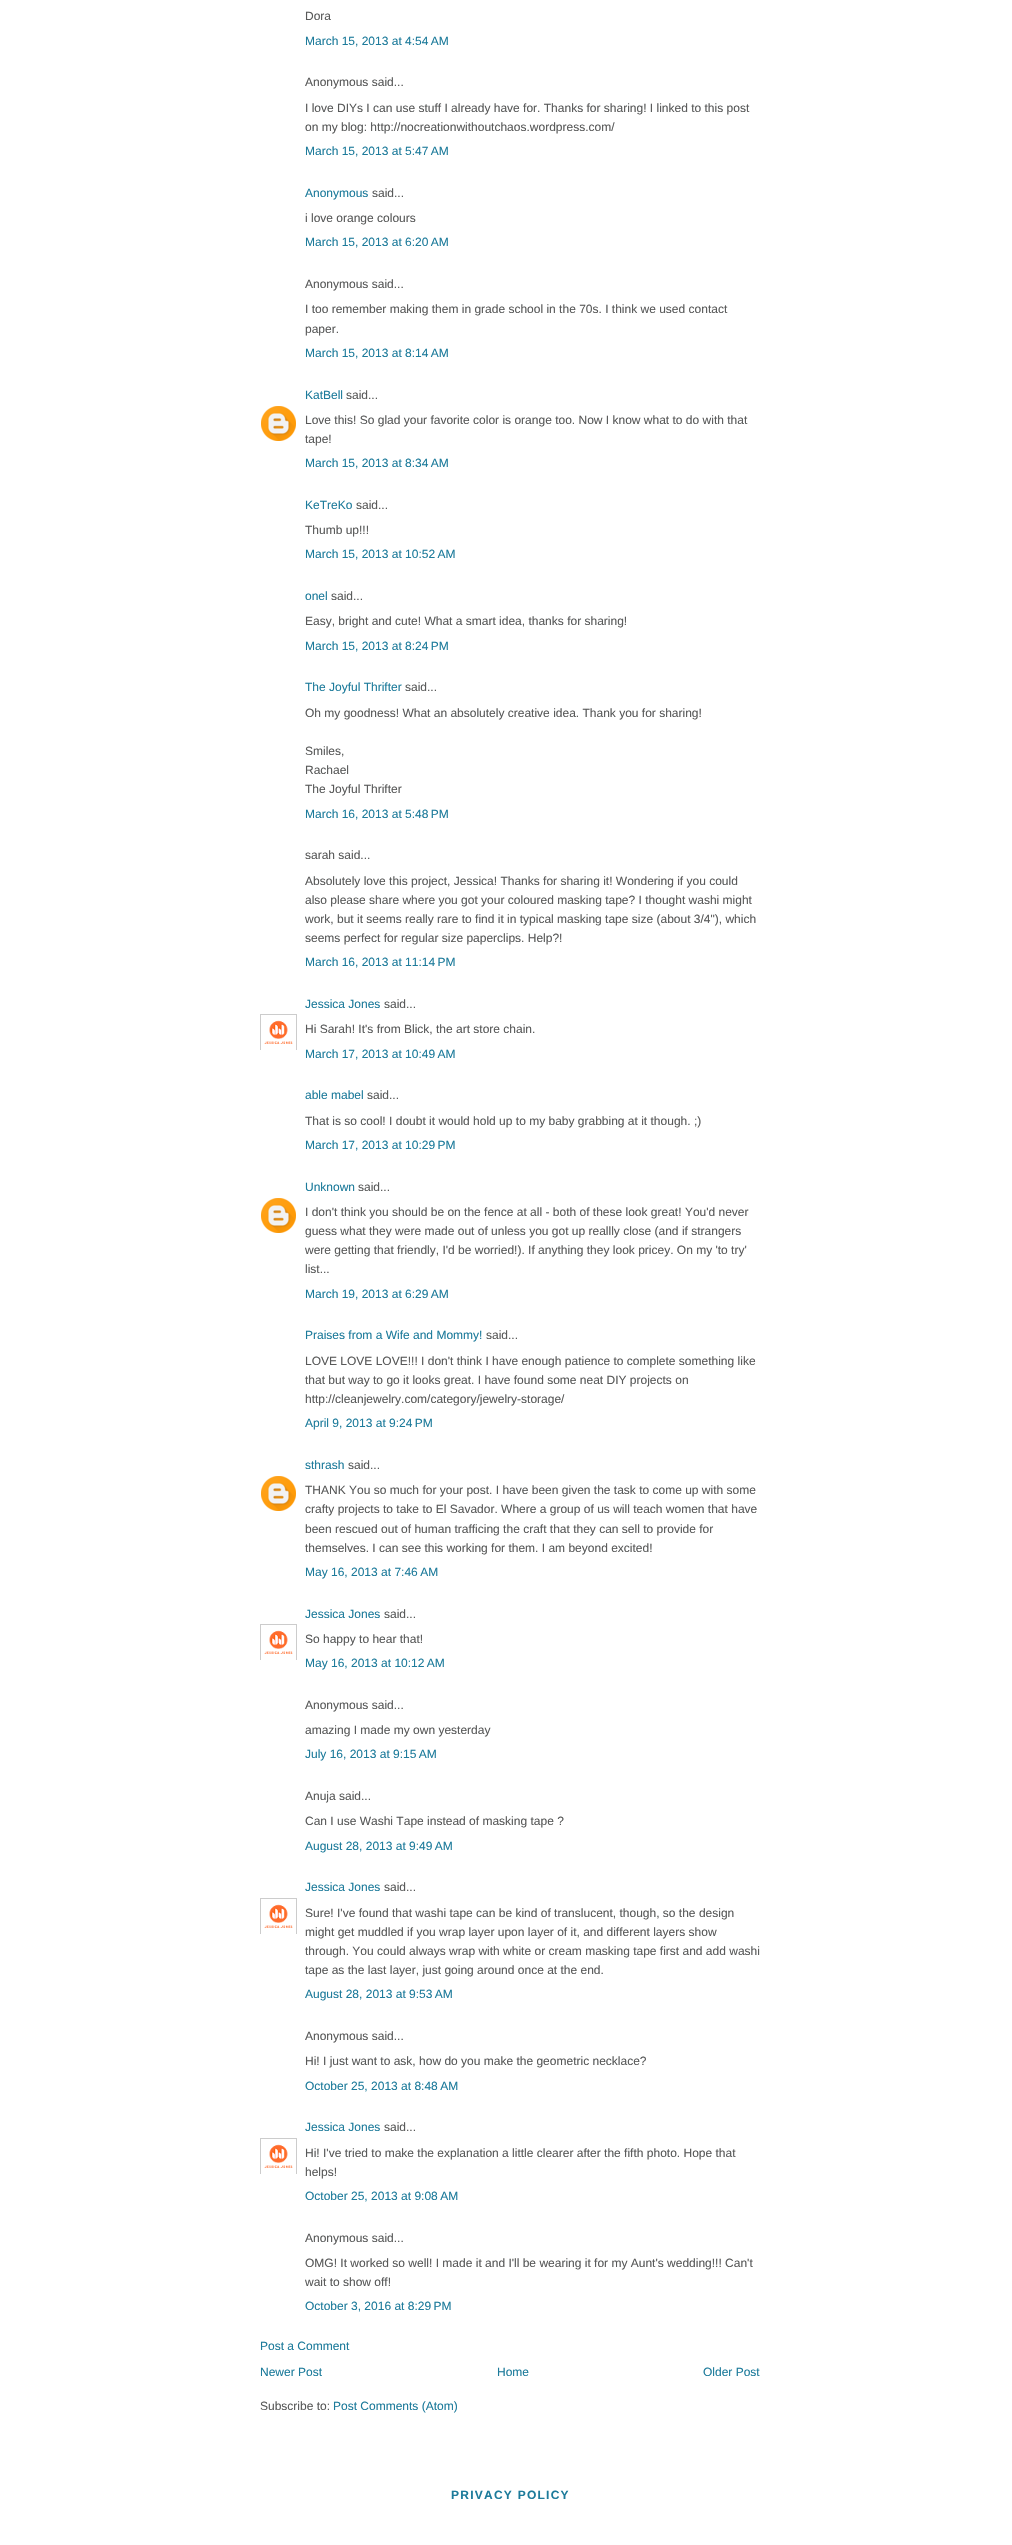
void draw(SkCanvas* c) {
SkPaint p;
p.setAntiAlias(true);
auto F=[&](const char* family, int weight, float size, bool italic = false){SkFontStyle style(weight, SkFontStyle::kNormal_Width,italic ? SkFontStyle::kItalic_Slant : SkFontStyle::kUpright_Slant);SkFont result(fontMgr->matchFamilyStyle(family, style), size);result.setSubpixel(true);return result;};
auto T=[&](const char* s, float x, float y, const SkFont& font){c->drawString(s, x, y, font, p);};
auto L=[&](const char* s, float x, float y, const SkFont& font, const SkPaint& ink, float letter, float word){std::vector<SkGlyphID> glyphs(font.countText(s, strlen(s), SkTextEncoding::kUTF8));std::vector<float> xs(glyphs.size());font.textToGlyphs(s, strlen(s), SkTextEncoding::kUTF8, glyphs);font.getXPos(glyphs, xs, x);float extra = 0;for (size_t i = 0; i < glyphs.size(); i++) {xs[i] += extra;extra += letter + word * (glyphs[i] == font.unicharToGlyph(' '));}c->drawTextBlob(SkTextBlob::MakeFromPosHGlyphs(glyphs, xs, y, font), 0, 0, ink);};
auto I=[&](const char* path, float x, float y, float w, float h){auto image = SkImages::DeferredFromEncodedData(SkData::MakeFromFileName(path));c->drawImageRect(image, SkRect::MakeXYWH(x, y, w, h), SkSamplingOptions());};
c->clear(0xffffffff);
auto f1 = F("Liberation Sans",400,12);
p.setColor(0xff585959);
T("Dora",305,20,f1);
p.setColor(0xff1d7b9b);
T("March 15, 2013 at 4:54 AM",305,45,f1);
p.setColor(0xff585959);
T("Anonymous said...",305,86,f1);
T("I love DIYs I can use stuff I already have for. Thanks for sharing! I linked to this post",305,112,f1);
T("on my blog: http://nocreationwithoutchaos.wordpress.com/",305,131,f1);
p.setColor(0xff1d7b9b);
T("March 15, 2013 at 5:47 AM",305,155,f1);
T("Anonymous",305,197,f1);
p.setColor(0xff585959);
T("said...",372,197,f1);
T("i love orange colours",305,222,f1);
p.setColor(0xff1d7b9b);
T("March 15, 2013 at 6:20 AM",305,246,f1);
p.setColor(0xff585959);
T("Anonymous said...",305,288,f1);
T("I too remember making them in grade school in the 70s. I think we used contact",305,313,f1);
T("paper.",305,333,f1);
p.setColor(0xff1d7b9b);
T("March 15, 2013 at 8:14 AM",305,357,f1);
T("KatBell",305,399,f1);
p.setColor(0xff585959);
T("said...",346,399,f1);
I("1.png",261,406,35,35);
T("Love this! So glad your favorite color is orange too. Now I know what to do with that",305,424,f1);
T("tape!",305,443,f1);
p.setColor(0xff1d7b9b);
T("March 15, 2013 at 8:34 AM",305,467,f1);
T("KeTreKo",305,509,f1);
p.setColor(0xff585959);
T("said...",356,509,f1);
T("Thumb up!!!",305,534,f1);
p.setColor(0xff1d7b9b);
T("March 15, 2013 at 10:52 AM",305,558,f1);
T("onel",305,600,f1);
p.setColor(0xff585959);
T("said...",331,600,f1);
T("Easy, bright and cute! What a smart idea, thanks for sharing!",305,625,f1);
p.setColor(0xff1d7b9b);
T("March 15, 2013 at 8:24 PM",305,650,f1);
T("The Joyful Thrifter",305,691,f1);
p.setColor(0xff585959);
T("said...",405,691,f1);
T("Oh my goodness! What an absolutely creative idea. Thank you for sharing!",305,717,f1);
T("Smiles,",305,755,f1);
T("Rachael",305,774,f1);
T("The Joyful Thrifter",305,793,f1);
p.setColor(0xff1d7b9b);
T("March 16, 2013 at 5:48 PM",305,818,f1);
p.setColor(0xff585959);
T("sarah said...",305,859,f1);
T("Absolutely love this project, Jessica! Thanks for sharing it! Wondering if you could",305,885,f1);
T("also please share where you got your coloured masking tape? I thought washi might",305,904,f1);
T("work, but it seems really rare to find it in typical masking tape size (about 3/4\"), which",305,923,f1);
T("seems perfect for regular size paperclips. Help?!",305,942,f1);
p.setColor(0xff1d7b9b);
T("March 16, 2013 at 11:14 PM",305,966,f1);
T("Jessica Jones",305,1008,f1);
p.setColor(0xff585959);
T("said...",384,1008,f1);
c->save();
c->clipRect(SkRect::MakeXYWH(260,1014,37,36));
p.setStroke(true);
p.setStrokeWidth(1);
p.setColor(0xffcccccc);
c->drawRect(SkRect::MakeXYWH(260.5,1014.5,36,36),p);
c->restore();
I("2.png",264,1020,29,24);
p.setStroke(false);
p.setColor(0xff585959);
T("Hi Sarah! It's from Blick, the art store chain.",305,1033,f1);
p.setColor(0xff1d7b9b);
T("March 17, 2013 at 10:49 AM",305,1058,f1);
T("able mabel",305,1099,f1);
p.setColor(0xff585959);
T("said...",367,1099,f1);
T("That is so cool! I doubt it would hold up to my baby grabbing at it though. ;)",305,1125,f1);
p.setColor(0xff1d7b9b);
T("March 17, 2013 at 10:29 PM",305,1149,f1);
T("Unknown",305,1191,f1);
p.setColor(0xff585959);
T("said...",358,1191,f1);
I("1.png",261,1198,35,35);
T("I don't think you should be on the fence at all - both of these look great! You'd never",305,1216,f1);
T("guess what they were made out of unless you got up reallly close (and if strangers",305,1235,f1);
T("were getting that friendly, I'd be worried!). If anything they look pricey. On my 'to try'",305,1254,f1);
T("list...",305,1273,f1);
p.setColor(0xff1d7b9b);
T("March 19, 2013 at 6:29 AM",305,1298,f1);
T("Praises from a Wife and Mommy!",305,1339,f1);
p.setColor(0xff585959);
T("said...",486,1339,f1);
T("LOVE LOVE LOVE!!! I don't think I have enough patience to complete something like",305,1365,f1);
T("that but way to go it looks great. I have found some neat DIY projects on",305,1384,f1);
T("http://cleanjewelry.com/category/jewelry-storage/",305,1403,f1);
p.setColor(0xff1d7b9b);
T("April 9, 2013 at 9:24 PM",305,1427,f1);
T("sthrash",305,1469,f1);
p.setColor(0xff585959);
T("said...",348,1469,f1);
I("1.png",261,1476,35,35);
T("THANK You so much for your post. I have been given the task to come up with some",305,1494,f1);
T("crafty projects to take to El Savador. Where a group of us will teach women that have",305,1513,f1);
T("been rescued out of human trafficing the craft that they can sell to provide for",305,1533,f1);
T("themselves. I can see this working for them. I am beyond excited!",305,1552,f1);
p.setColor(0xff1d7b9b);
T("May 16, 2013 at 7:46 AM",305,1576,f1);
T("Jessica Jones",305,1618,f1);
p.setColor(0xff585959);
T("said...",384,1618,f1);
c->save();
c->clipRect(SkRect::MakeXYWH(260,1624,37,36));
p.setStroke(true);
p.setColor(0xffcccccc);
c->drawRect(SkRect::MakeXYWH(260.5,1624.5,36,36),p);
c->restore();
I("2.png",264,1630,29,24);
p.setStroke(false);
p.setColor(0xff585959);
T("So happy to hear that!",305,1643,f1);
p.setColor(0xff1d7b9b);
T("May 16, 2013 at 10:12 AM",305,1667,f1);
p.setColor(0xff585959);
T("Anonymous said...",305,1709,f1);
T("amazing I made my own yesterday",305,1734,f1);
p.setColor(0xff1d7b9b);
T("July 16, 2013 at 9:15 AM",305,1758,f1);
p.setColor(0xff585959);
T("Anuja said...",305,1800,f1);
T("Can I use Washi Tape instead of masking tape ?",305,1825,f1);
p.setColor(0xff1d7b9b);
T("August 28, 2013 at 9:49 AM",305,1850,f1);
T("Jessica Jones",305,1891,f1);
p.setColor(0xff585959);
T("said...",384,1891,f1);
c->save();
c->clipRect(SkRect::MakeXYWH(260,1898,37,36));
p.setStroke(true);
p.setColor(0xffcccccc);
c->drawRect(SkRect::MakeXYWH(260.5,1898.5,36,36),p);
c->restore();
I("2.png",264,1904,29,24);
p.setStroke(false);
p.setColor(0xff585959);
T("Sure! I've found that washi tape can be kind of translucent, though, so the design",305,1917,f1);
T("might get muddled if you wrap layer upon layer of it, and different layers show",305,1936,f1);
T("through. You could always wrap with white or cream masking tape first and add washi",305,1955,f1);
T("tape as the last layer, just going around once at the end.",305,1974,f1);
p.setColor(0xff1d7b9b);
T("August 28, 2013 at 9:53 AM",305,1998,f1);
p.setColor(0xff585959);
T("Anonymous said...",305,2040,f1);
T("Hi! I just want to ask, how do you make the geometric necklace?",305,2065,f1);
p.setColor(0xff1d7b9b);
T("October 25, 2013 at 8:48 AM",305,2090,f1);
T("Jessica Jones",305,2131,f1);
p.setColor(0xff585959);
T("said...",384,2131,f1);
c->save();
c->clipRect(SkRect::MakeXYWH(260,2138,37,36));
p.setStroke(true);
p.setColor(0xffcccccc);
c->drawRect(SkRect::MakeXYWH(260.5,2138.5,36,36),p);
c->restore();
I("3.png",264,2144,29,24);
p.setStroke(false);
p.setColor(0xff585959);
T("Hi! I've tried to make the explanation a little clearer after the fifth photo. Hope that",305,2157,f1);
T("helps!",305,2176,f1);
p.setColor(0xff1d7b9b);
T("October 25, 2013 at 9:08 AM",305,2200,f1);
p.setColor(0xff585959);
T("Anonymous said...",305,2242,f1);
T("OMG! It worked so well! I made it and I'll be wearing it for my Aunt's wedding!!! Can't",305,2267,f1);
T("wait to show off!",305,2286,f1);
p.setColor(0xff1d7b9b);
T("October 3, 2016 at 8:29 PM",305,2310,f1);
T("Post a Comment",260,2350,f1);
T("Newer Post",260,2376,f1);
T("Home",497,2376,f1);
T("Older Post",703,2376,f1);
p.setColor(0xff585959);
T("Subscribe to:",260,2410,f1);
p.setColor(0xff1d7b9b);
T("Post Comments (Atom)",333,2410,f1);
auto f2 = F("Liberation Sans",700,12);
L("PRIVACY POLICY",451,2499,f2,p,1.25,0);
}
